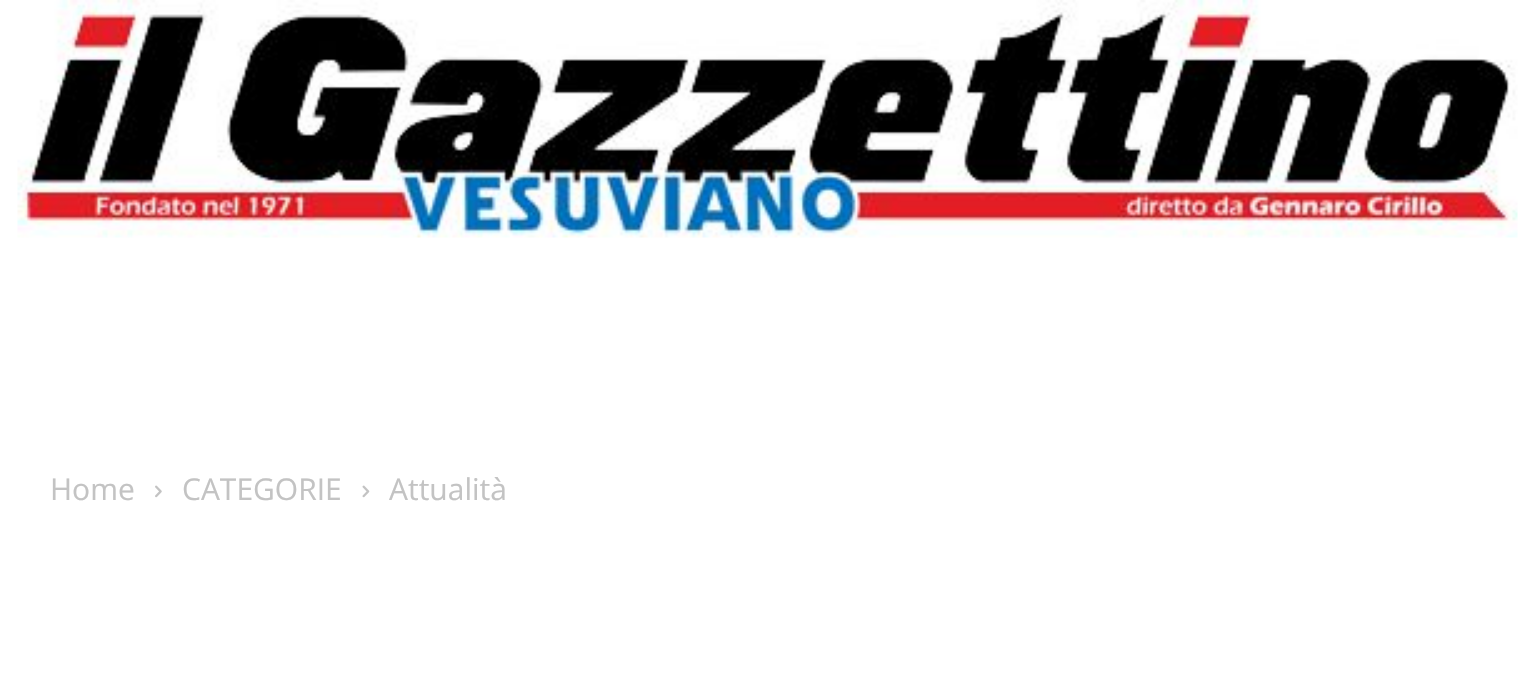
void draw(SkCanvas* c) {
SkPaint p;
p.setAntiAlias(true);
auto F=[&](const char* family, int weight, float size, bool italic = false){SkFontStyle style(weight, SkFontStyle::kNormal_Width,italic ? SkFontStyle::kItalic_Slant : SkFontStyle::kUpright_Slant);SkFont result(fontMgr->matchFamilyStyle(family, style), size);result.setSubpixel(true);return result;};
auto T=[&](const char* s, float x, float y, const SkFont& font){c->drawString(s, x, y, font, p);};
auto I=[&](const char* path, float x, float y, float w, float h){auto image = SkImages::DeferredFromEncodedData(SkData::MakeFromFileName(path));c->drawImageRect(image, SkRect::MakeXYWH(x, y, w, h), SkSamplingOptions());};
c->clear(0xffffffff);
I("1.png",17,0,1501,238);
auto f1 = F("Open Sans",400,30);
p.setColor(0xffc3c3c3);
T("Home",50,500,f1);
I("2.png",155,485,7,13);
T("CATEGORIE",182,500,f1);
I("3.png",362,485,8,13);
T("Attualità",389,500,f1);
}
